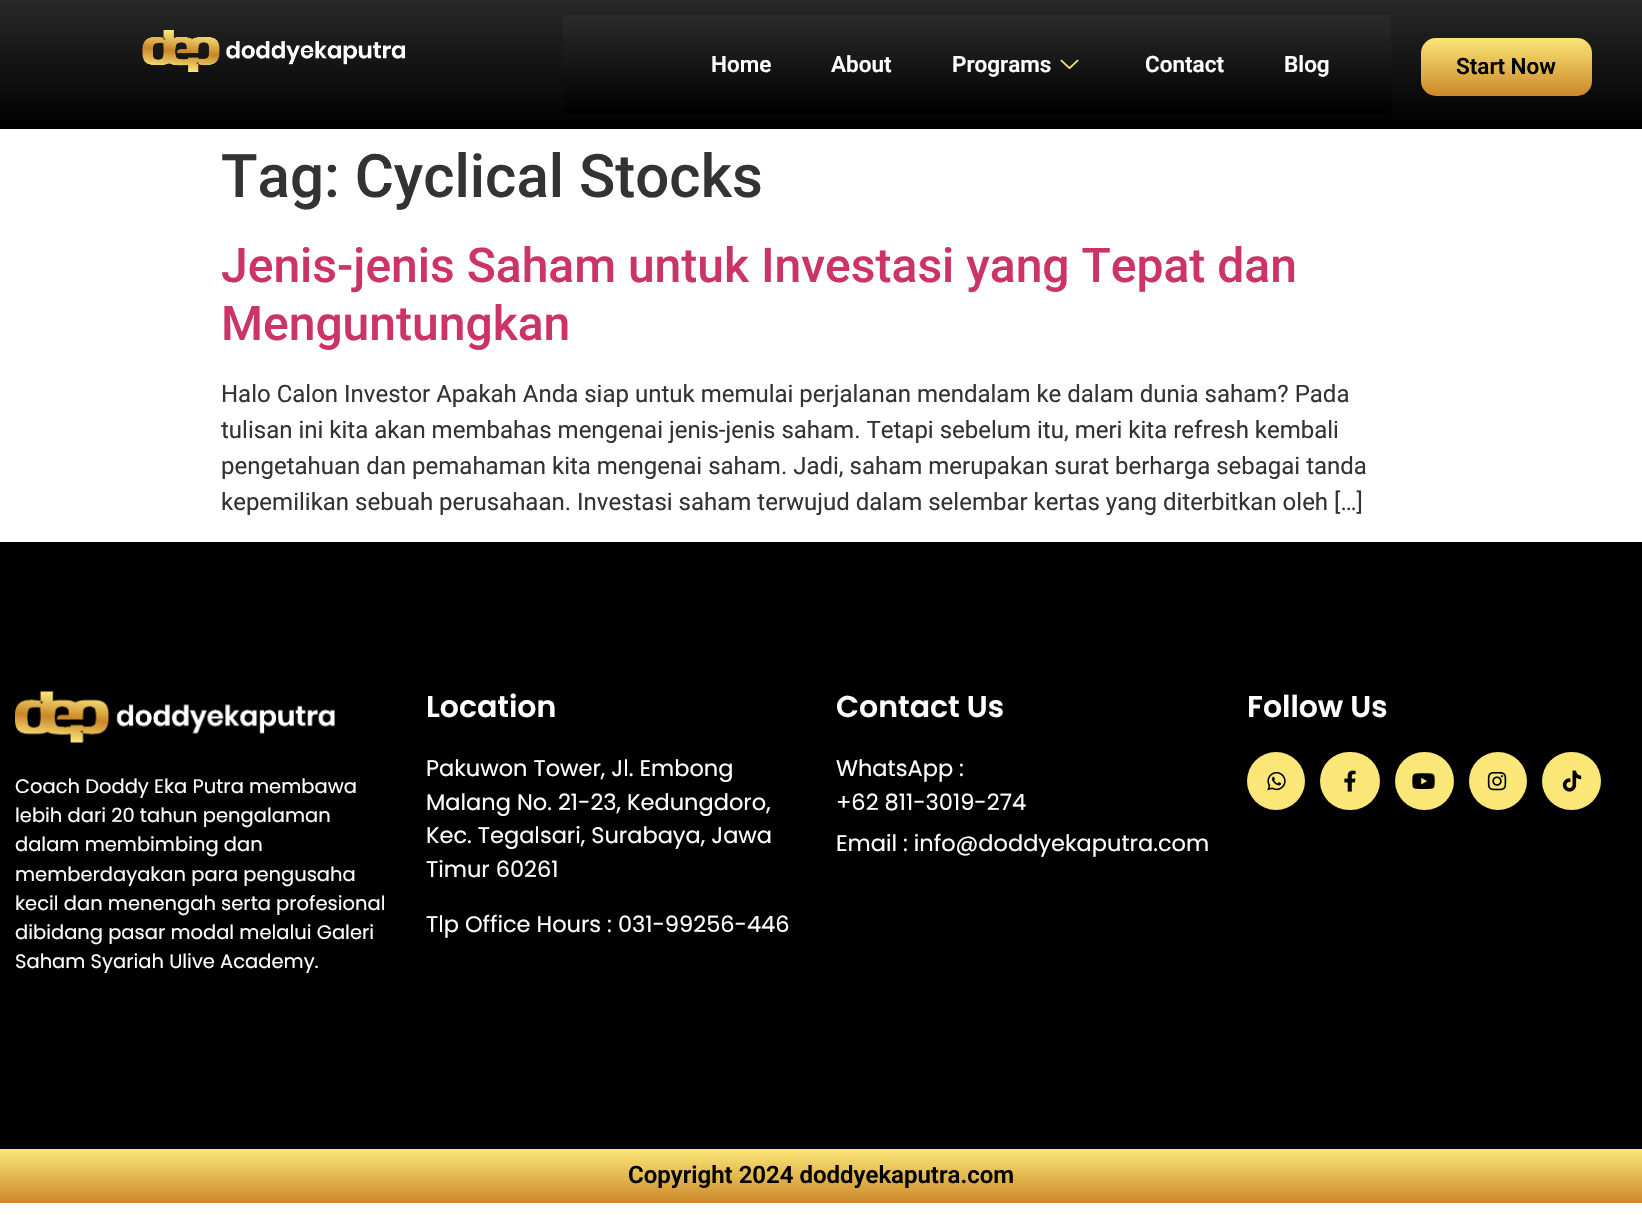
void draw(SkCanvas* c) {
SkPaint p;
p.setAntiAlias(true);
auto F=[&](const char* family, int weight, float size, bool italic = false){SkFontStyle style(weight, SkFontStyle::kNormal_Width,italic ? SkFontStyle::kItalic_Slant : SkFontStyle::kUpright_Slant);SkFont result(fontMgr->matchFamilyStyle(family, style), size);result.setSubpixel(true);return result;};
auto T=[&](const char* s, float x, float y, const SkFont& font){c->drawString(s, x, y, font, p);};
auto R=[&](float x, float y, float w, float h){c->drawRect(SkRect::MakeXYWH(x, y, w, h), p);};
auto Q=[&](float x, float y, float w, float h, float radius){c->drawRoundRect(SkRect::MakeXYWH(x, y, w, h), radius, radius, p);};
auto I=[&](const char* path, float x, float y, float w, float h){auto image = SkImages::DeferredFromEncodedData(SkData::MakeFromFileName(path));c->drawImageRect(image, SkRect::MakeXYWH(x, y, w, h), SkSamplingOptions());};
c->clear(0xffffffff);
{
const SkColor colors[] = {0xff282828,0xff000000};
const float stops[] = {0,1};
const SkPoint ends[] = {{821,0}, {821,129}};
p.setShader(SkGradientShader::MakeLinear(ends, colors, stops, 2, SkTileMode::kClamp));
p.setAlpha(255);
}
R(0,0,1642,129);
I("1.png",142,30,263,42);
{
const SkColor colors[] = {0xff2b2b2b,0xff000000};
const float stops[] = {0,1};
const SkPoint ends[] = {{977,15}, {977,114}};
p.setShader(SkGradientShader::MakeLinear(ends, colors, stops, 2, SkTileMode::kClamp));
p.setAlpha(255);
}
R(563,15,828,99);
auto f1 = F("Roboto",600,22.5);
p.setShader(nullptr);
p.setColor(0xffffffff);
T("Home",711,72,f1);
T("About",831,72,f1);
T("Programs",952,72,f1);
I("2.png",1060,59,19,10);
T("Contact",1145,72,f1);
T("Blog",1284,72,f1);
{
const SkColor colors[] = {0xfffae777,0xffcc8929};
const float stops[] = {0,1};
const SkPoint ends[] = {{1506,37}, {1506,96}};
p.setShader(SkGradientShader::MakeLinear(ends, colors, stops, 2, SkTileMode::kClamp));
p.setAlpha(255);
}
Q(1421,38,171,58,15);
p.setShader(nullptr);
p.setColor(0xff000000);
T("Start Now",1456,74,f1);
auto f2 = F("Roboto",500,60);
p.setColor(0xff333333);
T("Tag: Cyclical Stocks",221,197,f2);
auto f3 = F("Roboto",500,48);
p.setColor(0xffcc3366);
T("Jenis-jenis Saham untuk Investasi yang Tepat dan",221,282,f3);
T("Menguntungkan",221,340,f3);
auto f4 = F("Roboto",400,24);
p.setColor(0xff333333);
T("Halo Calon Investor Apakah Anda siap untuk memulai perjalanan mendalam ke dalam dunia saham? Pada",221,402,f4);
T("tulisan ini kita akan membahas mengenai jenis-jenis saham. Tetapi sebelum itu, meri kita refresh kembali",221,438,f4);
T("pengetahuan dan pemahaman kita mengenai saham. Jadi, saham merupakan surat berharga sebagai tanda",221,474,f4);
T("kepemilikan sebuah perusahaan. Investasi saham terwujud dalam selembar kertas yang diterbitkan oleh […]",221,510,f4);
p.setColor(0xff000000);
R(0,542,1642,607);
I("3.png",15,691,320,52);
auto f5 = F("Poppins",400,19.5);
p.setColor(0xffffffff);
T("Coach Doddy Eka Putra membawa",15,793,f5);
T("lebih dari 20 tahun pengalaman",15,822,f5);
T("dalam membimbing dan",15,851,f5);
T("memberdayakan para pengusaha",15,881,f5);
T("kecil dan menengah serta profesional",15,910,f5);
T("dibidang pasar modal melalui Galeri",15,939,f5);
T("Saham Syariah Ulive Academy.",15,968,f5);
auto f6 = F("Poppins",600,30);
T("Location",426,717,f6);
auto f7 = F("Poppins",400,22.5);
T("Pakuwon Tower, Jl. Embong",426,776,f7);
T("Malang No. 21-23, Kedungdoro,",426,810,f7);
T("Kec. Tegalsari, Surabaya, Jawa",426,843,f7);
T("Timur 60261",426,877,f7);
T("Tlp Office Hours : 031-99256-446",426,932,f7);
T("Contact Us",836,717,f6);
T("WhatsApp :",836,776,f7);
T("+62 811-3019-274",836,810,f7);
T("Email : info@doddyekaputra.com",836,851,f7);
T("Follow Us",1247,717,f6);
p.setColor(0xfffae777);
c->drawCircle(1276,781,29,p);
I("4.png",1267,771,19,20);
Q(1320,752,60,58,29);
I("5.png",1344,770,12,22);
Q(1395,752,59,58,29);
I("6.png",1412,773,23,16);
c->drawCircle(1498,781,29,p);
I("7.png",1487,771,20,20);
Q(1542,752,59,58,29);
I("8.png",1562,770,20,22);
{
const SkColor colors[] = {0xfffae777,0xffcc8929};
const float stops[] = {0,1};
const SkPoint ends[] = {{821,1149}, {821,1203}};
p.setShader(SkGradientShader::MakeLinear(ends, colors, stops, 2, SkTileMode::kClamp));
p.setAlpha(255);
}
R(0,1149,1642,54);
auto f8 = F("Roboto",600,24);
p.setShader(nullptr);
p.setColor(0xff000000);
T("Copyright 2024 doddyekaputra.com",628,1183,f8);
}
